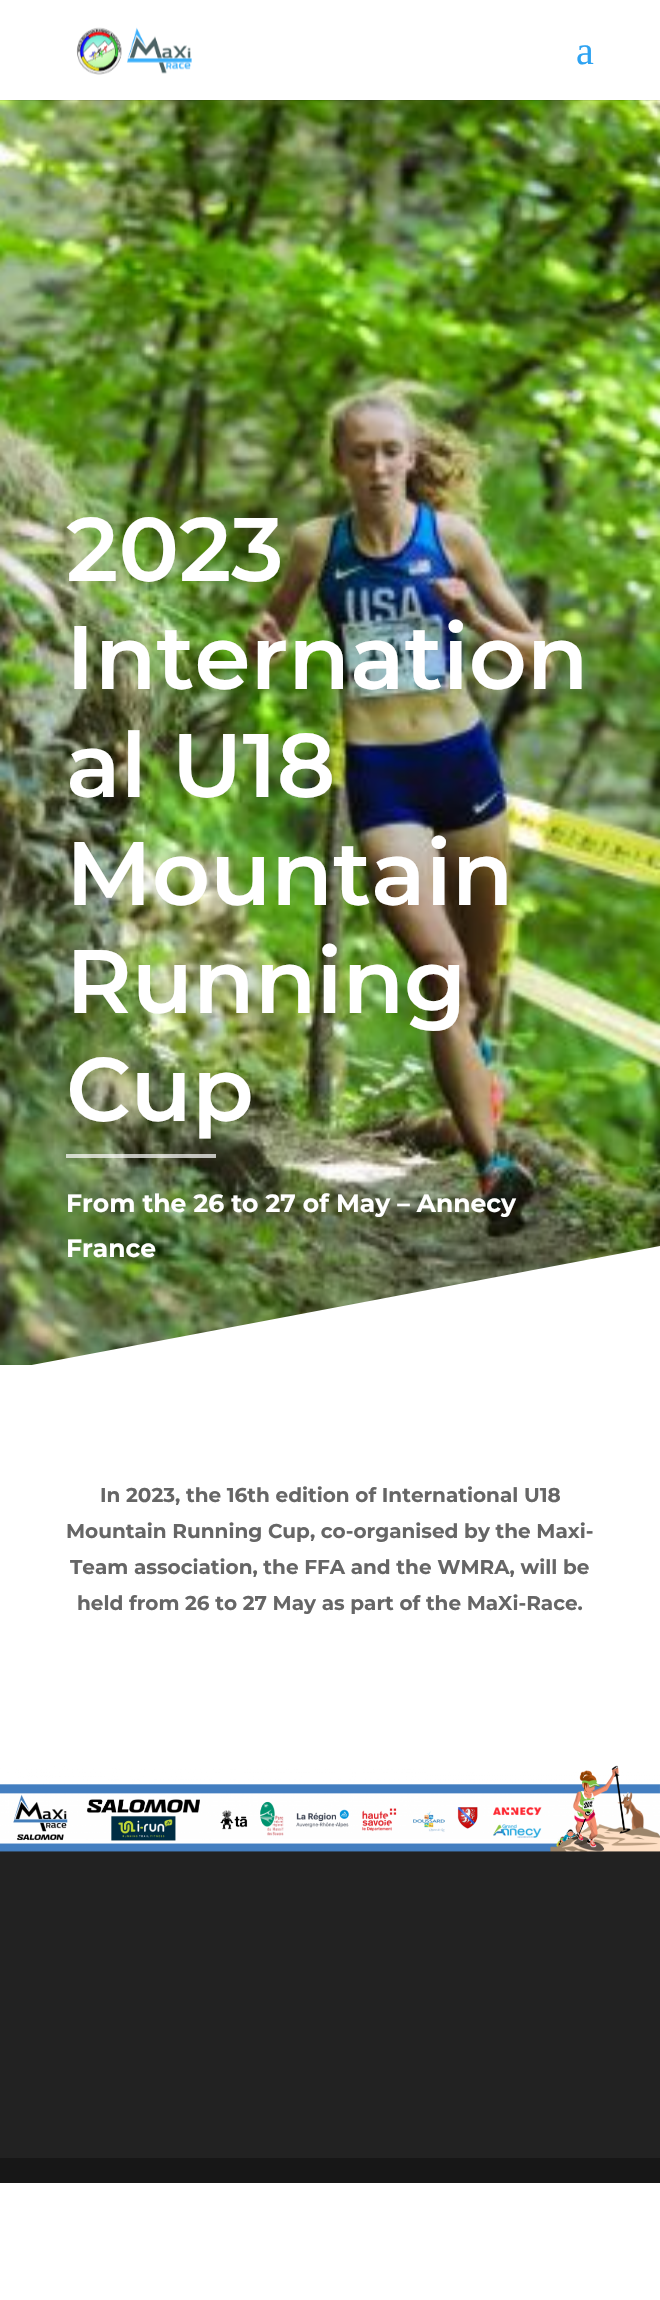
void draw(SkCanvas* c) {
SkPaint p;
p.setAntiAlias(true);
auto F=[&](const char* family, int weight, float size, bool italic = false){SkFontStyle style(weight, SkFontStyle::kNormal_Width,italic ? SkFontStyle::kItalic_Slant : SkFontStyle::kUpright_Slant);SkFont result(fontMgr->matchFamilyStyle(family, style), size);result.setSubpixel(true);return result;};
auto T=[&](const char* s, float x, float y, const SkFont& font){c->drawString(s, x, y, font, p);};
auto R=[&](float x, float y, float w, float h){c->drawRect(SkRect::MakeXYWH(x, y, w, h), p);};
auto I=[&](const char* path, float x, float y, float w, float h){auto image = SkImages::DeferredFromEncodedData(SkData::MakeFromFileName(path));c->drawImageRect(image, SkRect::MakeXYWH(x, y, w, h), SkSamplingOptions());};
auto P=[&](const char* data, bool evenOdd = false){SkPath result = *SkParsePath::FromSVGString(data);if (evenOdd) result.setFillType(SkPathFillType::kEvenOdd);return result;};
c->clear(0xffffffff);
I("2.png",0,100,660,1265);
p.setColor(0x1a000000);
R(0,100,660,1);
I("1.png",76,27,116,48);
auto f1 = F("Liberation Serif",400,40);
p.setColor(0xff2ea3f2);
T("a",576,64,f1);
auto f2 = F("Montserrat",600,90);
p.setColor(0xffffffff);
T("2023",66,581,f2);
T("Internation",66,689,f2);
T("al U18",66,797,f2);
T("Mountain",66,905,f2);
T("Running",66,1013,f2);
T("Cup",66,1121,f2);
p.setColor(0xb3ffffff);
R(66,1154,150,4);
auto f3 = F("Montserrat",700,25);
p.setColor(0xffffffff);
T("From the 26 to 27 of May – Annecy",66,1212,f3);
c->drawPath(P("M660 1246v125h-660z"),p);
T("France",66,1257,f3);
auto f4 = F("Montserrat",700,20);
p.setColor(0xff666666);
T("In 2023, the 16th edition of International U18",100,1502,f4);
T("Mountain Running Cup, co-organised by the Maxi-",66,1538,f4);
T("Team association, the FFA and the WMRA, will be",70,1574,f4);
T("held from 26 to 27 May as part of the MaXi-Race.",77,1610,f4);
p.setColor(0xff222222);
R(0,1851,660,307);
I("3.png",0,1765,660,87);
p.setColor(0xff171717);
R(0,2158,660,25);
}
